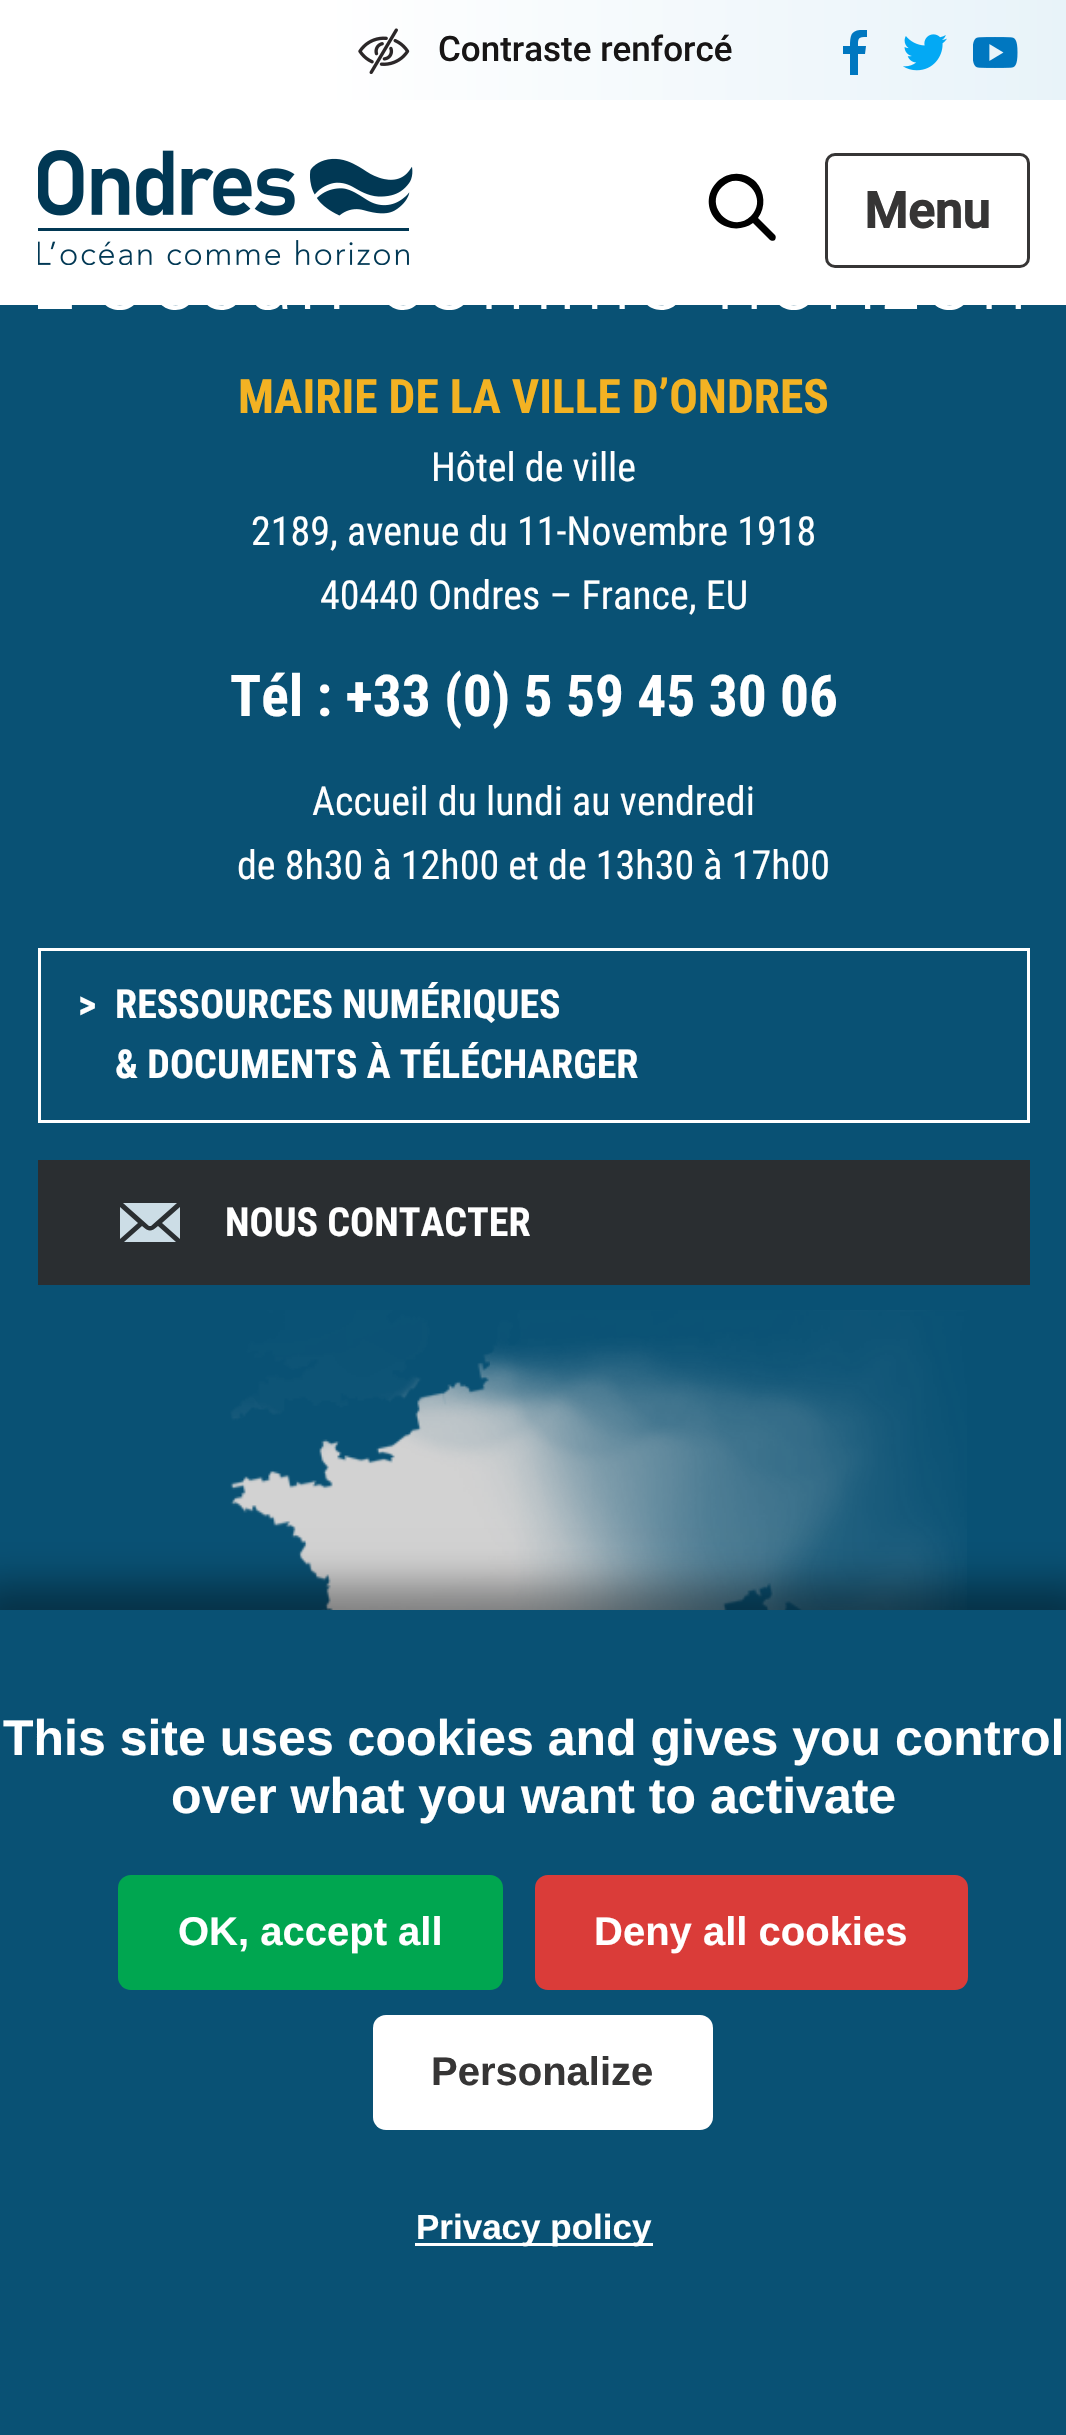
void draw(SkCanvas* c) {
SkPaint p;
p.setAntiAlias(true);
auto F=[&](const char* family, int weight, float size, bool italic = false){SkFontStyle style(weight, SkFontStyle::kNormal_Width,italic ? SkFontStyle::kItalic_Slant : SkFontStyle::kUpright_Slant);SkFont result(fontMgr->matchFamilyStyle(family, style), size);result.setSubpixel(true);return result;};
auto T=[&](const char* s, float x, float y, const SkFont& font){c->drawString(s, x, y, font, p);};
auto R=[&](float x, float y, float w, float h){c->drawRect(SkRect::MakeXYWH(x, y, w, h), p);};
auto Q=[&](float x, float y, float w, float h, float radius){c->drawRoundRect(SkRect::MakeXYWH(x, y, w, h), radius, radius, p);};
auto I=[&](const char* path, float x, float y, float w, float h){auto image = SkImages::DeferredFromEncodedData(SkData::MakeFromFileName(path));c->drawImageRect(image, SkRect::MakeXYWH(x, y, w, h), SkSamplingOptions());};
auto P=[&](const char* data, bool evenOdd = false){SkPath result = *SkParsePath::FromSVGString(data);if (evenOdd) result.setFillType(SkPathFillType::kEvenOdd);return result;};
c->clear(0xff095174);
{
const SkColor colors[] = {0xffffffff,0xffe8f3f9};
const float stops[] = {.3,1};
const SkPoint ends[] = {{0,50}, {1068,50}};
p.setShader(SkGradientShader::MakeLinear(ends, colors, stops, 2, SkTileMode::kClamp));
p.setAlpha(255);
}
R(0,0,1066,100);
I("1.png",358,28,52,46);
auto f1 = F("Roboto",500,35);
p.setShader(nullptr);
p.setColor(0xff171515);
T("Contraste renforcé",438,61,f1);
c->save();
c->clipRect(SkRect::MakeXYWH(833,30,45,45));
p.setColor(0xff0077c0);
c->drawPath(P("M858 75v-21h7l1-8h-8c0-8 0-9 9-9v-7c-15-1-17 3-17 16h-7v8h7v21z"),p);
c->restore();
I("2.png",903,34,44,37);
I("3.png",973,37,45,31);
p.setColor(0xffffffff);
R(0,100,1066,205);
I("4.png",38,150,375,115);
p.setColor(0xff000000);
c->drawPath(P("M758 218l17 17c1 1 1 3 0 5c-1 1-4 1-5 0l-17-17c-11 8-26 7-36-2c-11-11-11-28 0-39c11-11 28-11 39 0c9 10 10 25 2 36zm-7-2c19-19-10-48-29-29c-19 19 10 48 29 29z",true),p);
p.setStroke(true);
p.setStrokeWidth(3);
p.setColor(0xff363535);
c->drawRoundRect(SkRect::MakeXYWH(826.5,154.5,202,112),8.5,8.5,p);
auto f2 = F("Roboto",700,50);
p.setStroke(false);
T("Menu",864,228,f2);
I("5.png",38,305,983,5);
auto f3 = F("Roboto Condensed",700,47.5);
p.setColor(0xfff3b223);
T("MAIRIE DE LA VILLE D’ONDRES",238,413,f3);
auto f4 = F("Roboto Condensed",400,40);
p.setColor(0xffffffff);
T("Hôtel de ville",431,481,f4);
T("2189, avenue du 11-Novembre 1918",251,545,f4);
T("40440 Ondres – France, EU",320,609,f4);
auto f5 = F("Roboto Condensed",700,57.5);
T("Tél : +33 (0) 5 59 45 30 06",230,716,f5);
T("Accueil du lundi au vendredi",312,815,f4);
T("de 8h30 à 12h00 et de 13h30 à 17h00",237,879,f4);
p.setStroke(true);
c->drawRect(SkRect::MakeXYWH(39.5,949.5,989,172),p);
auto f6 = F("Roboto Condensed",700,40);
p.setStroke(false);
T(">",78,1018,f6);
T("RESSOURCES NUMÉRIQUES",115,1018,f6);
T("& DOCUMENTS À TÉLÉCHARGER",115,1078,f6);
p.setColor(0xff2a2e31);
R(38,1160,992,125);
p.setColor(0xffccdde6);
c->drawPath(P("M124 1203h-1l26 23c0 0 2 0 2 0l26-23zm-4 4v32l18-16zm60 0l-18 16l18 16zm-22 19c-7 6-9 6-16 0l-18 16h52z"),p);
p.setColor(0xffffffff);
T("NOUS CONTACTER",225,1236,f6);
I("6.png",230,1310,737,300);
p.setColor(0x66000000);
p.setMaskFilter(SkMaskFilter::MakeBlur(kNormal_SkBlurStyle, 19));
c->drawRect(SkRect::MakeXYWH(-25,1585,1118,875),p);
p.setMaskFilter(nullptr);
p.setColor(0xff095174);
R(0,1610,1066,825);
auto f7 = F("Liberation Sans",700,50);
p.setColor(0xffffffff);
T("This site uses cookies and gives you control",3,1755,f7);
T("over what you want to activate",171,1813,f7);
p.setColor(0xff00a650);
Q(118,1875,385,115,13);
auto f8 = F("Liberation Sans",700,40);
p.setColor(0xffffffff);
T("OK, accept all",178,1945,f8);
p.setColor(0xffda3c39);
Q(535,1875,433,115,13);
p.setColor(0xffffffff);
T("Deny all cookies",594,1945,f8);
Q(373,2015,340,115,13);
p.setColor(0xff363535);
T("Personalize",431,2085,f8);
p.setColor(0xffffffff);
R(415,2243,238,3);
auto f9 = F("Liberation Sans",700,35);
T("Privacy policy",416,2239,f9);
}
